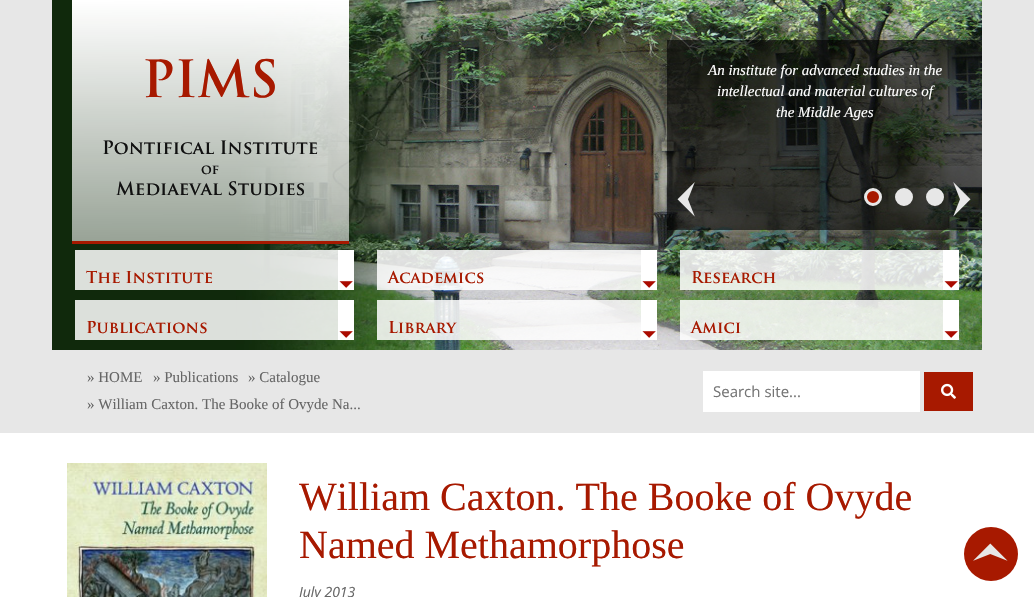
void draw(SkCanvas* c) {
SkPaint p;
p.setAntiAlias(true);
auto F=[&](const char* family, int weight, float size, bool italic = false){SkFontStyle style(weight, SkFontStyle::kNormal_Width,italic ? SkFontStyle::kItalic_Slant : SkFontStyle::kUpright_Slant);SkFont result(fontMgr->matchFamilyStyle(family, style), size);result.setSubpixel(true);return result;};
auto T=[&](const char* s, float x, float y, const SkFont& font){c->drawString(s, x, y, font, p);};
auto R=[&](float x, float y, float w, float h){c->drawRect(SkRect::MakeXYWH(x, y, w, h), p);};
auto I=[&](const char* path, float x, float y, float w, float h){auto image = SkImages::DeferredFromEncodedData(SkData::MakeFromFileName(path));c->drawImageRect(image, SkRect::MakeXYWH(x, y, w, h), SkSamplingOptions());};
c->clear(0xffffffff);
p.setColor(0xffe7e7e7);
R(0,0,1034,433);
I("1.png",52,0,930,350);
p.setColor(0xffa71900);
R(72,241,277,3);
auto f1 = F("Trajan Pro",700,50);
T("PIMS",142,97,f1);
auto f2 = F("Trajan Pro",700,18);
p.setColor(0xff111111);
T("Pontifical Institute",102,154,f2);
auto f3 = F("Trajan Pro",700,13);
T("of",201,174,f3);
T("Mediaeval Studies",116,195,f2);
p.setColor(0x99000000);
R(667,40,315,190);
auto f4 = F("Liberation Serif",400,15,true);
p.setColor(0xffffffff);
T("An institute for advanced studies in the",708,75,f4);
T("intellectual and material cultures of",717,96,f4);
T("the Middle Ages",776,117,f4);
I("2.png",677,182,18,35);
I("3.png",953,182,18,35);
p.setColor(0xffa71900);
c->drawCircle(873,197,7.5,p);
p.setStroke(true);
p.setStrokeWidth(3);
p.setColor(0xffe7e7e7);
c->drawCircle(873,197,7.5,p);
p.setStroke(false);
c->drawCircle(904,197,7.5,p);
p.setStroke(true);
c->drawCircle(904,197,7.5,p);
p.setStroke(false);
c->drawCircle(935,197,7.5,p);
p.setStroke(true);
c->drawCircle(935,197,7.5,p);
p.setStroke(false);
p.setColor(0xd9ffffff);
R(75,250,263,40);
auto f5 = F("Trajan Pro",700,16);
p.setColor(0xffa71900);
T("The Institute",86,283,f5);
p.setColor(0xffffffff);
R(338,250,16,40);
I("4.png",339,281,14,7);
p.setColor(0xd9ffffff);
R(377,250,264,40);
p.setColor(0xffa71900);
T("Academics",388,283,f5);
p.setColor(0xffffffff);
R(641,250,16,40);
I("4.png",642,281,14,7);
p.setColor(0xd9ffffff);
R(680,250,263,40);
p.setColor(0xffa71900);
T("Research",691,283,f5);
p.setColor(0xffffffff);
R(943,250,16,40);
I("4.png",944,281,14,7);
p.setColor(0xd9ffffff);
R(75,300,263,40);
p.setColor(0xffa71900);
T("Publications",86,333,f5);
p.setColor(0xffffffff);
R(338,300,16,40);
I("4.png",339,331,14,7);
p.setColor(0xd9ffffff);
R(377,300,264,40);
p.setColor(0xffa71900);
T("Library",388,333,f5);
p.setColor(0xffffffff);
R(641,300,16,40);
I("4.png",642,331,14,7);
p.setColor(0xd9ffffff);
R(680,300,263,40);
p.setColor(0xffa71900);
T("Amici",691,333,f5);
p.setColor(0xffffffff);
R(943,300,16,40);
I("4.png",944,331,14,7);
auto f6 = F("Liberation Serif",400,15);
p.setColor(0xff666666);
T("» HOME",87,382,f6);
T("» Publications",153,382,f6);
T("» Catalogue",248,382,f6);
T("» William Caxton. The Booke of Ovyde Na...",87,409,f6);
p.setColor(0xffffffff);
R(703,371,217,41);
auto f7 = F("Open Sans",400,15);
p.setColor(0xff757575);
T("Search site...",713,397,f7);
p.setColor(0xffa71900);
R(924,372,49,39);
I("5.png",941,383,15,16);
I("6.png",67,463,200,134);
auto f8 = F("Liberation Serif",400,40);
T("William Caxton. The Booke of Ovyde",299,510,f8);
T("Named Methamorphose",299,558,f8);
auto f9 = F("Open Sans",400,14,true);
p.setColor(0xff666666);
T("July 2013",299,597,f9);
p.setColor(0xffa71900);
c->drawCircle(991,554,27,p);
I("7.png",973,543,35,18);
}
